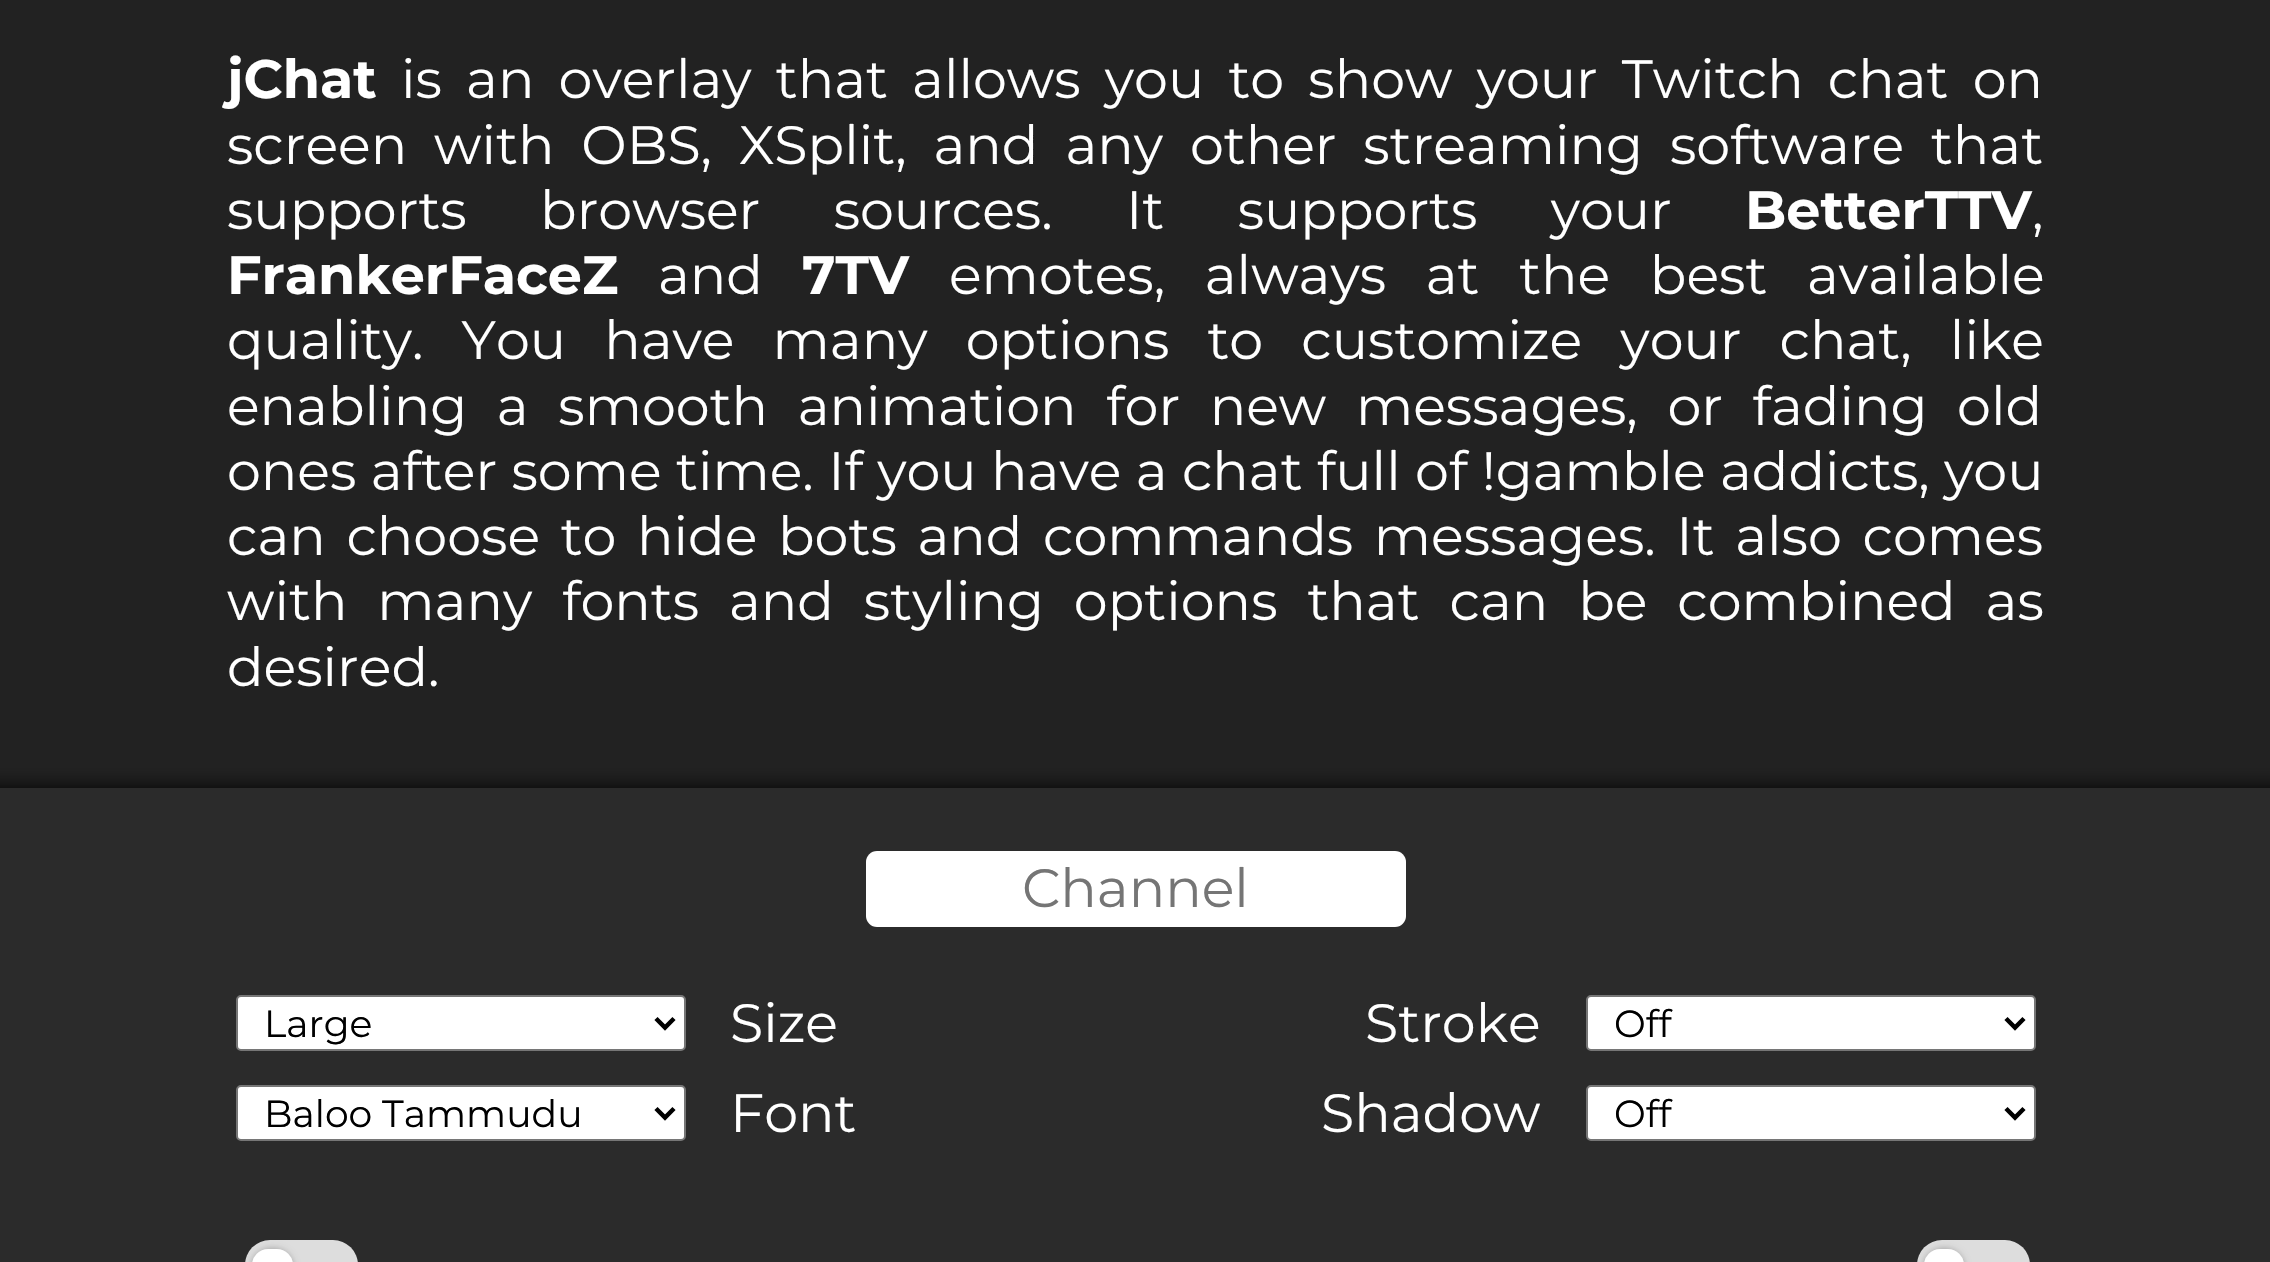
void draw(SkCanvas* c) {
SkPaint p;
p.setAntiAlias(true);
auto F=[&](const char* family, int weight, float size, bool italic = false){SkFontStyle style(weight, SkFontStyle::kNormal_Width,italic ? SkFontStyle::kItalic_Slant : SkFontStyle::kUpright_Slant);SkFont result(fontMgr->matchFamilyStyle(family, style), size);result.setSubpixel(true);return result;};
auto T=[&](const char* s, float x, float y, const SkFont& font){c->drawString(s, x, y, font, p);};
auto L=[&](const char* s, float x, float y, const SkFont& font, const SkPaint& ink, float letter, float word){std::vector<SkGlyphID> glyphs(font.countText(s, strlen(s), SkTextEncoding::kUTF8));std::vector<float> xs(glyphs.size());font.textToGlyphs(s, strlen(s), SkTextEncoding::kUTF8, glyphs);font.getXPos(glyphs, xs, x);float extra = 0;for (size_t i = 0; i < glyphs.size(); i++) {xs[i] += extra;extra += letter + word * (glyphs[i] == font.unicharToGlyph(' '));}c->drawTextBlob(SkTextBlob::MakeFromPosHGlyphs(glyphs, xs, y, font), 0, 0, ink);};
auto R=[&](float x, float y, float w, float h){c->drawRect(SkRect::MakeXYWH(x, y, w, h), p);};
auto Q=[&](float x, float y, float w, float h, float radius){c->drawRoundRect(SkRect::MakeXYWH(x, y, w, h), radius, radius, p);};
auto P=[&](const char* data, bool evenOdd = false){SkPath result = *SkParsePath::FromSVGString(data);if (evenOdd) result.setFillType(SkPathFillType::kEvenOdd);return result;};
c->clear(0xff222222);
auto f1 = F("Montserrat",700,54);
p.setColor(0xffffffff);
T("jChat",227,98,f1);
auto f2 = F("Montserrat",400,54);
L("is an overlay that allows you to show your Twitch chat on",401,98,f2,p,0,10);
L("screen with OBS, XSplit, and any other streaming software that",227,164,f2,p,0,12.75);
L("supports browser sources. It supports your",227,229,f2,p,0,59.25);
T("BetterTTV",1745,229,f1);
T(",",2032,229,f2);
T("FrankerFaceZ",227,294,f1);
T("and",658,294,f2);
T("7TV",802,294,f1);
L("emotes, always at the best available",949,294,f2,p,0,25.5);
L("quality. You have many options to customize your chat, like",227,359,f2,p,0,24);
L("enabling a smooth animation for new messages, or fading old",227,425,f2,p,0,15.5);
L("ones after some time. If you have a chat full of !gamble addicts, you",227,490,f2,p,0,.25);
L("can choose to hide bots and commands messages. It also comes",227,555,f2,p,0,6.5);
L("with many fonts and styling options that can be combined as",227,620,f2,p,0,15.75);
T("desired.",227,686,f2);
p.setColor(0xff000000);
p.setMaskFilter(SkMaskFilter::MakeBlur(kNormal_SkBlurStyle, 11));
c->drawRoundRect(SkRect::MakeXYWH(-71,788,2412,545),38,38,p);
p.setMaskFilter(nullptr);
p.setColor(0xff2b2b2b);
R(0,788,2270,474);
p.setColor(0xffffffff);
Q(866,851,540,76,11);
p.setColor(0xff757575);
T("Channel",1022,907,f2);
p.setColor(0xffffffff);
c->drawRoundRect(SkRect::MakeXYWH(237,996,448,54),4,4,p);
p.setStroke(true);
p.setStrokeWidth(2);
p.setColor(0xff767676);
c->drawRoundRect(SkRect::MakeXYWH(237,996,448,54),4,4,p);
p.setStrokeWidth(4.5);
p.setColor(0xff000000);
c->drawPath(P("M656 1018.5l9 9l9-9"),p);
auto f3 = F("Montserrat",400,37.75);
p.setStroke(false);
T("Large",264,1037,f3);
p.setColor(0xffffffff);
T("Size",730,1042,f2);
c->drawRoundRect(SkRect::MakeXYWH(237,1086,448,54),4,4,p);
p.setStroke(true);
p.setStrokeWidth(2);
p.setColor(0xff767676);
c->drawRoundRect(SkRect::MakeXYWH(237,1086,448,54),4,4,p);
p.setStrokeWidth(4.5);
p.setColor(0xff000000);
c->drawPath(P("M656 1108.5l9 9l9-9"),p);
p.setStroke(false);
T("Baloo Tammudu",264,1127,f3);
p.setColor(0xffffffff);
T("Font",730,1132,f2);
p.setColor(0xffdddddd);
Q(245,1240,113,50,28);
p.setColor(0x4d000000);
p.setMaskFilter(SkMaskFilter::MakeBlur(kNormal_SkBlurStyle, 3.5));
c->drawRoundRect(SkRect::MakeXYWH(252,1249,41,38),19,19,p);
p.setMaskFilter(nullptr);
p.setColor(0xffffffff);
Q(252,1249,41,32,19);
T("Stroke",1365,1042,f2);
c->drawRoundRect(SkRect::MakeXYWH(1587,996,448,54),4,4,p);
p.setStroke(true);
p.setStrokeWidth(2);
p.setColor(0xff767676);
c->drawRoundRect(SkRect::MakeXYWH(1587,996,448,54),4,4,p);
p.setStrokeWidth(4.5);
p.setColor(0xff000000);
c->drawPath(P("M2006 1018.5l9 9l9-9"),p);
p.setStroke(false);
T("Off",1614,1037,f3);
p.setColor(0xffffffff);
T("Shadow",1321,1132,f2);
c->drawRoundRect(SkRect::MakeXYWH(1587,1086,448,54),4,4,p);
p.setStroke(true);
p.setStrokeWidth(2);
p.setColor(0xff767676);
c->drawRoundRect(SkRect::MakeXYWH(1587,1086,448,54),4,4,p);
p.setStrokeWidth(4.5);
p.setColor(0xff000000);
c->drawPath(P("M2006 1108.5l9 9l9-9"),p);
p.setStroke(false);
T("Off",1614,1127,f3);
p.setColor(0xffdddddd);
Q(1917,1240,113,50,28);
p.setColor(0x4d000000);
p.setMaskFilter(SkMaskFilter::MakeBlur(kNormal_SkBlurStyle, 3.5));
c->drawRoundRect(SkRect::MakeXYWH(1924,1249,40,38),19,19,p);
p.setMaskFilter(nullptr);
p.setColor(0xffffffff);
Q(1924,1249,40,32,19);
}
